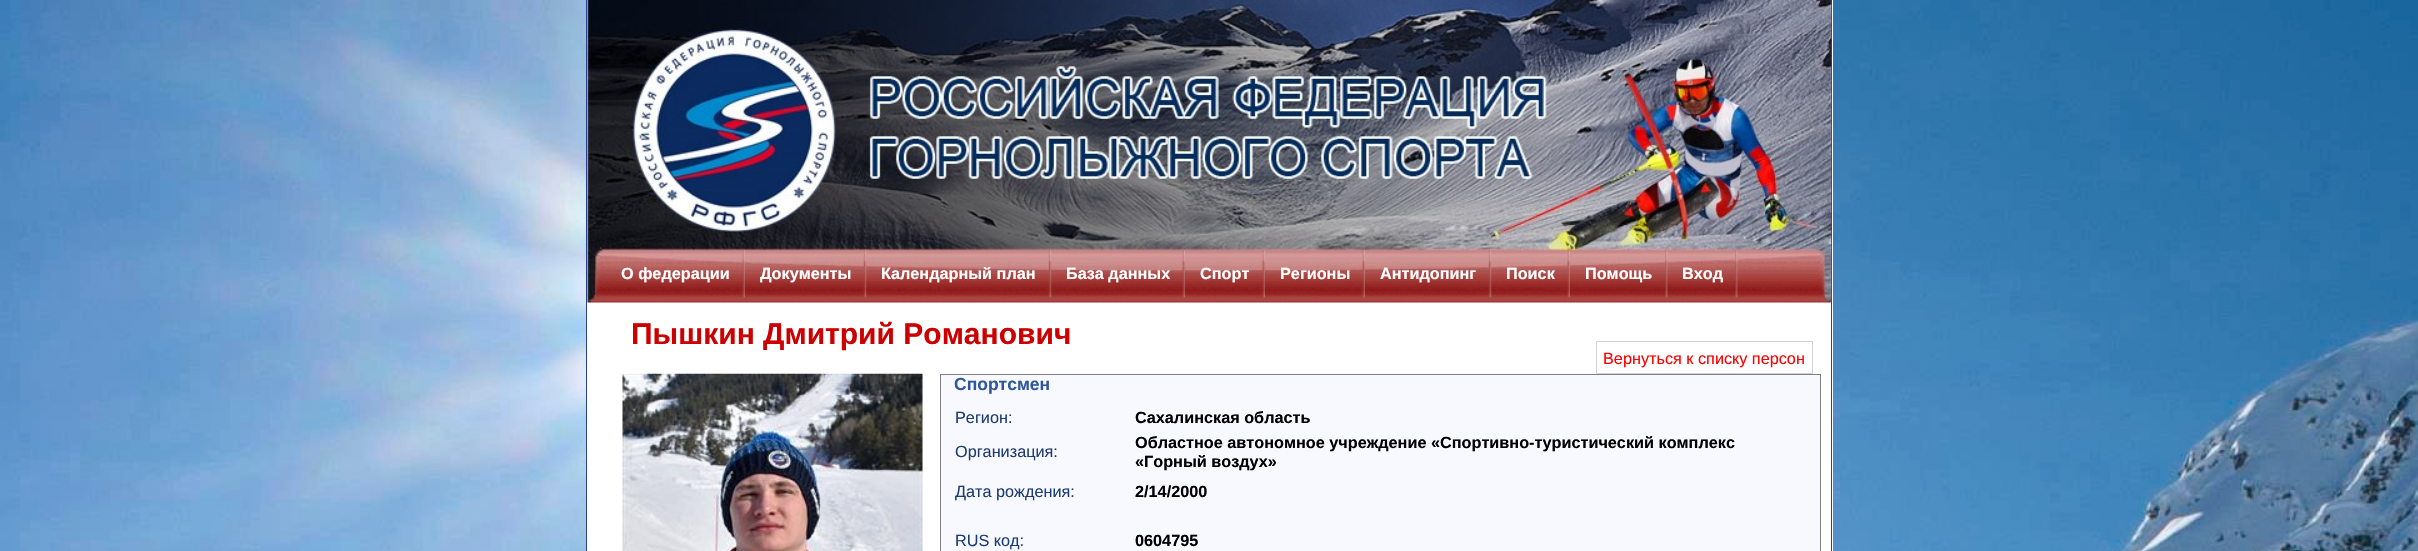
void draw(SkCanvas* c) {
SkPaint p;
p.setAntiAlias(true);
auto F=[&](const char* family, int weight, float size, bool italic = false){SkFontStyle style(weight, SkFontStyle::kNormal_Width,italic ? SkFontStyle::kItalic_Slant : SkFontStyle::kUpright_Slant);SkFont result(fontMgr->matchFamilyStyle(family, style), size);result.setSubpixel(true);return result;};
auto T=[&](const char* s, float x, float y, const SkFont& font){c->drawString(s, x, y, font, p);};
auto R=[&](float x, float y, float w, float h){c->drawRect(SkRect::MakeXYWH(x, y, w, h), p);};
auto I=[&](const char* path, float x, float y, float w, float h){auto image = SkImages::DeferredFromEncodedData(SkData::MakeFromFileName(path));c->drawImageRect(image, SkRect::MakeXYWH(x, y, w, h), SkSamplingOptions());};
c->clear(0xffffffff);
I("1.png",0,0,2418,551);
p.setColor(0xffffffff);
R(587,0,1246,551);
p.setColor(0xff294194);
R(1831,0,1,551);
R(586,0,1,551);
I("2.png",587,0,1245,303);
I("3.png",742,250,3,48);
auto f1 = F("Liberation Sans",700,16.25);
p.setColor(0xffffffff);
T("О федерации",621,279,f1);
I("4.png",863,250,4,48);
T("Документы",760,279,f1);
I("5.png",1048,250,4,48);
T("Календарный план",881,279,f1);
I("6.png",1182,250,3,48);
T("База данных",1066,279,f1);
I("7.png",1262,250,3,48);
T("Спорт",1200,279,f1);
I("8.png",1362,250,3,48);
T("Регионы",1280,279,f1);
I("9.png",1488,250,4,48);
T("Aнтидопинг",1380,279,f1);
I("10.png",1567,250,3,48);
T("Поиск",1506,279,f1);
I("11.png",1665,250,3,48);
T("Помощь",1585,279,f1);
I("12.png",1735,250,3,48);
T("Вход",1682,279,f1);
auto f2 = F("Liberation Sans",700,30);
p.setColor(0xffcc0000);
T("Пышкин Дмитрий Романович",631,344,f2);
p.setStroke(true);
p.setStrokeWidth(1);
p.setColor(0xffd3d3d3);
c->drawRect(SkRect::MakeXYWH(1596.5,341.5,216,32),p);
auto f3 = F("Liberation Sans",400,16.25);
p.setStroke(false);
p.setColor(0xffff0000);
T("Вернуться к списку персон",1603,364,f3);
I("13.png",622,373,301,178);
p.setColor(0xfff8f8ff);
c->drawRect(SkRect::MakeXYWH(940.5,374.5,880,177),p);
p.setStroke(true);
p.setColor(0xff808080);
c->drawRect(SkRect::MakeXYWH(940.5,374.5,880,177),p);
auto f4 = F("Liberation Sans",700,17.5);
p.setStroke(false);
p.setColor(0xff30579c);
T("Спортсмен",954,390,f4);
p.setColor(0xff1c3c71);
T("Регион:",955,423,f3);
p.setColor(0xff000000);
T("Сахалинская область",1135,423,f1);
p.setColor(0xff1c3c71);
T("Организация:",955,457,f3);
p.setColor(0xff000000);
T("Областное автономное учреждение «Спортивно-туристический комплекс",1135,448,f1);
T("«Горный воздух»",1135,467,f1);
p.setColor(0xff1c3c71);
T("Дата рождения:",955,497,f3);
p.setColor(0xff000000);
T("2/14/2000",1135,497,f1);
p.setColor(0xff1c3c71);
T("RUS код:",955,546,f3);
p.setColor(0xff000000);
T("0604795",1135,546,f1);
}
